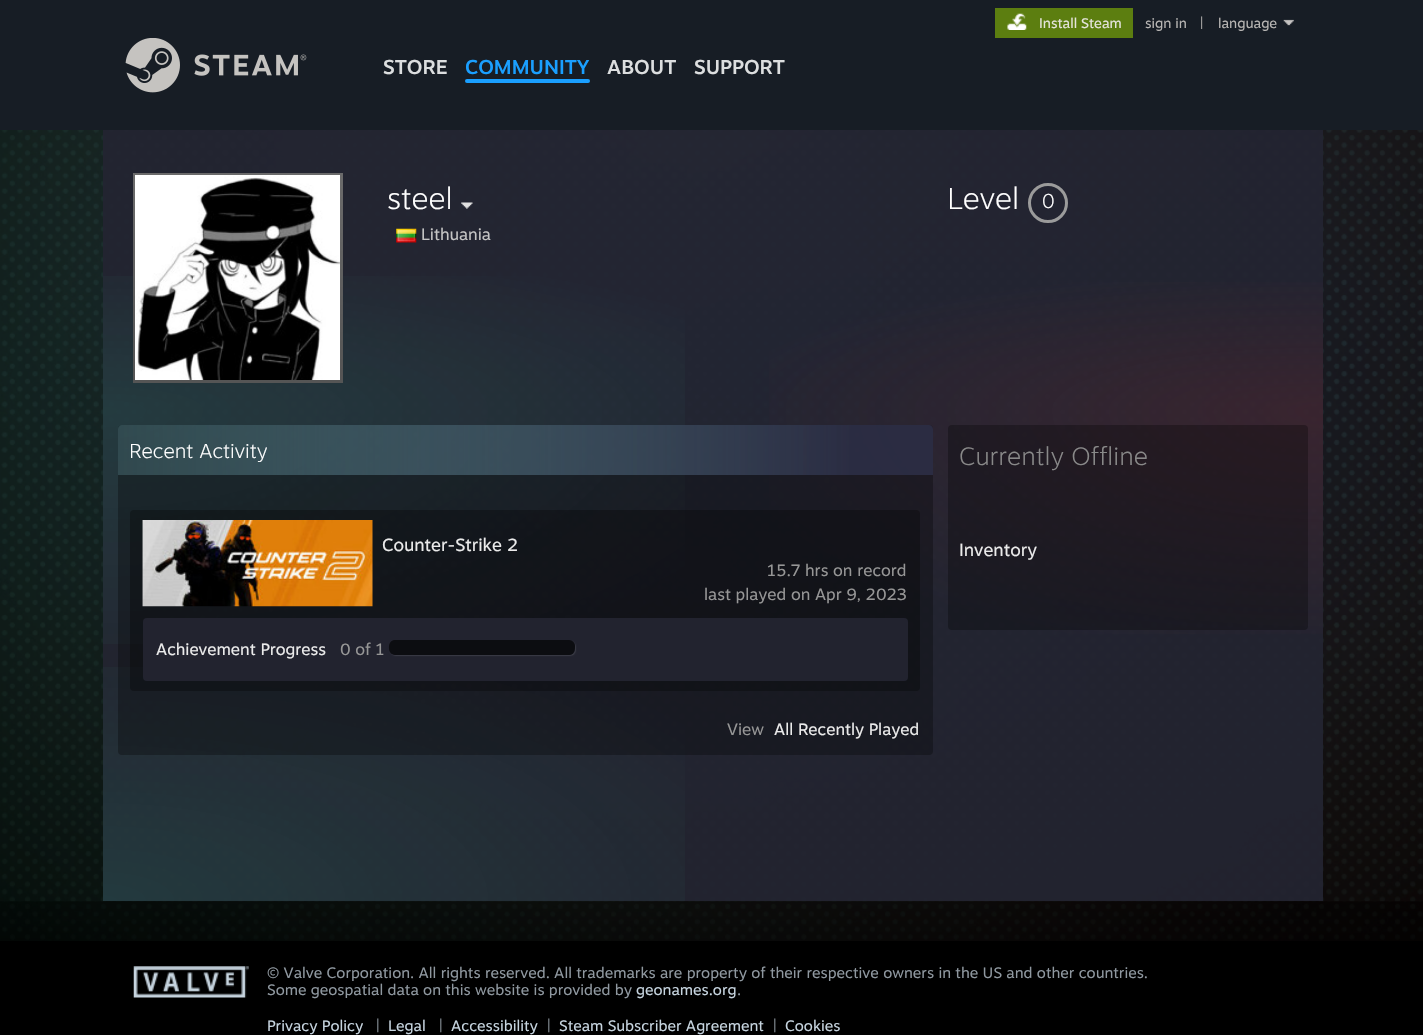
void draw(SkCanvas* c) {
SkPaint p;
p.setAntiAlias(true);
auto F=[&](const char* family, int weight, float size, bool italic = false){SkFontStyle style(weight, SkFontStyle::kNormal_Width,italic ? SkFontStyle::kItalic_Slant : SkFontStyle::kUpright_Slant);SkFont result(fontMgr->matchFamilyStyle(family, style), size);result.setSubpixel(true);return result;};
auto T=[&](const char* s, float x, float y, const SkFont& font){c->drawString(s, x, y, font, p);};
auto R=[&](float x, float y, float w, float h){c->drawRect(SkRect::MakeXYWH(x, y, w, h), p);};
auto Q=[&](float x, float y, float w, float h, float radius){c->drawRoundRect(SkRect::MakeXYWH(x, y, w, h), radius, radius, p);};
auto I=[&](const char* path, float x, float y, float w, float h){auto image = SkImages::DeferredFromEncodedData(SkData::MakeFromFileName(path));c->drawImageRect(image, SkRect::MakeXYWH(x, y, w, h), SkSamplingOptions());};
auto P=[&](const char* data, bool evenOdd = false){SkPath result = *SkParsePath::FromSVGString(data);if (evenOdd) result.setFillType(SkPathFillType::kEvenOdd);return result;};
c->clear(0xffffffff);
I("1.png",0,901,1423,40);
p.setColor(0xff171d25);
R(0,0,1423,130);
p.setColor(0xff5c7e10);
R(995,8,138,30);
I("2.png",1007,13,20,17);
auto f1 = F("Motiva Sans",400,13.75);
p.setColor(0xffe5e4dc);
T("Install Steam",1039,28,f1);
p.setColor(0xffb8b6b4);
T("sign in",1145,28,f1);
T("|",1200,28,f1);
T("language",1218,28,f1);
I("3.png",1283,19,11,7);
I("4.png",125,38,182,55);
auto f2 = F("Motiva Sans",500,20);
p.setColor(0xffdcdedf);
T("STORE",383,74,f2);
p.setColor(0xff1a9fff);
T("COMMUNITY",465,74,f2);
Q(465,79,125,4,2);
p.setColor(0xffdcdedf);
T("ABOUT",607,74,f2);
T("SUPPORT",694,74,f2);
I("5.png",0,130,1423,772);
p.setColor(0xed222330);
R(103,130,1220,280);
{
const SkColor colors[] = {0x1a32ffc1,0x0032ffc1};
const float stops[] = {0,.43};
SkMatrix m = SkMatrix::Translate(103,410).preScale(1725,396);
p.setShader(SkGradientShader::MakeRadial({0, 0}, 1, colors, stops, 2, SkTileMode::kClamp, 0, &m));
p.setAlpha(255);
}
R(103,276,582,134);
{
const SkColor colors[] = {0x4d6d262c,0x006d262c};
const float stops[] = {0,.51};
SkMatrix m = SkMatrix::Translate(1323,410).preScale(1220,280);
p.setShader(SkGradientShader::MakeRadial({0, 0}, 1, colors, stops, 2, SkTileMode::kClamp, 0, &m));
p.setAlpha(255);
}
R(769,282,554,128);
{
const SkColor colors[] = {0xff6a6a6a,0xff555555};
const float stops[] = {.05,.95};
const SkPoint ends[] = {{238,173}, {238,383}};
p.setShader(SkGradientShader::MakeLinear(ends, colors, stops, 2, SkTileMode::kClamp));
p.setAlpha(255);
}
R(133,173,210,210);
I("6.png",135,175,205,205);
auto f3 = F("Motiva Sans",100,30);
p.setShader(nullptr);
p.setColor(0xffffffff);
T("steel",387,209,f3);
I("7.png",461,202,12,7);
I("8.png",396,228,21,15);
auto f4 = F("Motiva Sans",400,16.25);
p.setColor(0xffc4c4c4);
T("Lithuania",421,240,f4);
p.setColor(0xffffffff);
T("Level",947,209,f3);
p.setStroke(true);
p.setStrokeWidth(3);
p.setColor(0xff9b9b9b);
c->drawCircle(1048,203,18.5,p);
auto f5 = F("Motiva Sans",100,20);
p.setStroke(false);
p.setColor(0xffffffff);
T("0",1042,208,f5);
p.setColor(0xed222330);
R(103,410,1220,491);
{
const SkColor colors[] = {0x1a32ffc1,0x0032ffc1};
const float stops[] = {0,.43};
SkMatrix m = SkMatrix::Translate(103,901).preScale(1725,695);
p.setShader(SkGradientShader::MakeRadial({0, 0}, 1, colors, stops, 2, SkTileMode::kClamp, 0, &m));
p.setAlpha(255);
}
R(103,667,582,234);
{
const SkColor colors[] = {0x1a32ffc1,0x0032ffc1};
const float stops[] = {0,.43};
SkMatrix m = SkMatrix::Translate(103,410).preScale(1725,695);
p.setShader(SkGradientShader::MakeRadial({0, 0}, 1, colors, stops, 2, SkTileMode::kClamp, 0, &m));
p.setAlpha(255);
}
R(103,410,582,234);
{
const SkColor colors[] = {0x4d6d262c,0x006d262c};
const float stops[] = {0,.51};
SkMatrix m = SkMatrix::Translate(1323,410).preScale(1220,491);
p.setShader(SkGradientShader::MakeRadial({0, 0}, 1, colors, stops, 2, SkTileMode::kClamp, 0, &m));
p.setAlpha(255);
}
R(769,410,554,224);
p.setShader(nullptr);
p.setColor(0x4d000000);
Q(118,425,815,330,4);
{
const SkColor colors[] = {0x4073adb8,0xed2b2d44};
const float stops[] = {0,.9};
const SkPoint ends[] = {{118,450}, {933,450}};
p.setShader(SkGradientShader::MakeLinear(ends, colors, stops, 2, SkTileMode::kClamp));
p.setAlpha(255);
}
c->drawPath(P("M122 425h807c2 0 4 2 4 4v46h-815v-46c0-2 2-4 4-4z"),p);
p.setShader(nullptr);
p.setColor(0xffffffff);
T("Recent Activity",129,458,f5);
p.setColor(0x4d000000);
Q(130,510,790,181,4);
I("9.png",142,520,231,87);
auto f6 = F("Motiva Sans",400,17.5);
p.setColor(0xffebebeb);
T("Counter-Strike 2",382,551,f6);
p.setColor(0xff969696);
T("15.7 hrs on record",767,576,f4);
T("last played on Apr 9, 2023",704,600,f4);
p.setColor(0xed222330);
Q(143,618,765,63,4);
p.setColor(0xffebebeb);
T("Achievement Progress",156,655,f4);
p.setColor(0xff969696);
T("0 of 1",340,655,f4);
c->save();
c->clipPath(P("M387 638h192v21h-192zm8 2h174c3.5 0 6 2.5 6 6v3c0 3.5-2.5 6-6 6h-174c-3.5 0-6-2.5-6-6v-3c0-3.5 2.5-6 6-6z",true),true);
p.setColor(0x1affffff);
p.setMaskFilter(SkMaskFilter::MakeBlur(kNormal_SkBlurStyle, .5));
c->drawRoundRect(SkRect::MakeXYWH(390,641,186,15),6,6,p);
p.setMaskFilter(nullptr);
c->restore();
p.setColor(0x4d000000);
Q(389,640,186,15,6);
p.setColor(0x80000000);
c->drawPath(P("M395 640h174c3 0 6 3 6 6c0 4-1 9-6 9h-174l-3-1c-5-3-4-14 3-14z"),p);
p.setColor(0xff969696);
T("View",727,735,f4);
p.setColor(0xffebebeb);
T("All Recently Played",774,735,f4);
p.setColor(0x4d000000);
Q(948,425,360,205,4);
auto f7 = F("Motiva Sans",100,25);
p.setColor(0xff898989);
T("Currently Offline",959,465,f7);
p.setColor(0xffebebeb);
T("Inventory",959,556,f6);
p.setColor(0xff000000);
R(0,941,1423,94);
I("10.png",133,966,116,32);
auto f8 = F("Motiva Sans",400,15);
p.setColor(0xff8f98a0);
T("© Valve Corporation. All rights reserved. All trademarks are property of their respective owners in the US and other countries.",267,978,f8);
T("Some geospatial data on this website is provided by",267,995,f8);
p.setColor(0xffc6d4df);
T("geonames.org",636,995,f8);
p.setColor(0xff8f98a0);
T(".",737,995,f8);
p.setColor(0xffc6d4df);
T("Privacy Policy",267,1031,f8);
p.setColor(0xff8f98a0);
T("|",376,1031,f8);
p.setColor(0xffc6d4df);
T("Legal",388,1031,f8);
p.setColor(0xff8f98a0);
T("|",439,1031,f8);
p.setColor(0xffc6d4df);
T("Accessibility",451,1031,f8);
p.setColor(0xff8f98a0);
T("|",547,1031,f8);
p.setColor(0xffc6d4df);
T("Steam Subscriber Agreement",559,1031,f8);
p.setColor(0xff8f98a0);
T("|",773,1031,f8);
p.setColor(0xffc6d4df);
T("Cookies",785,1031,f8);
}
